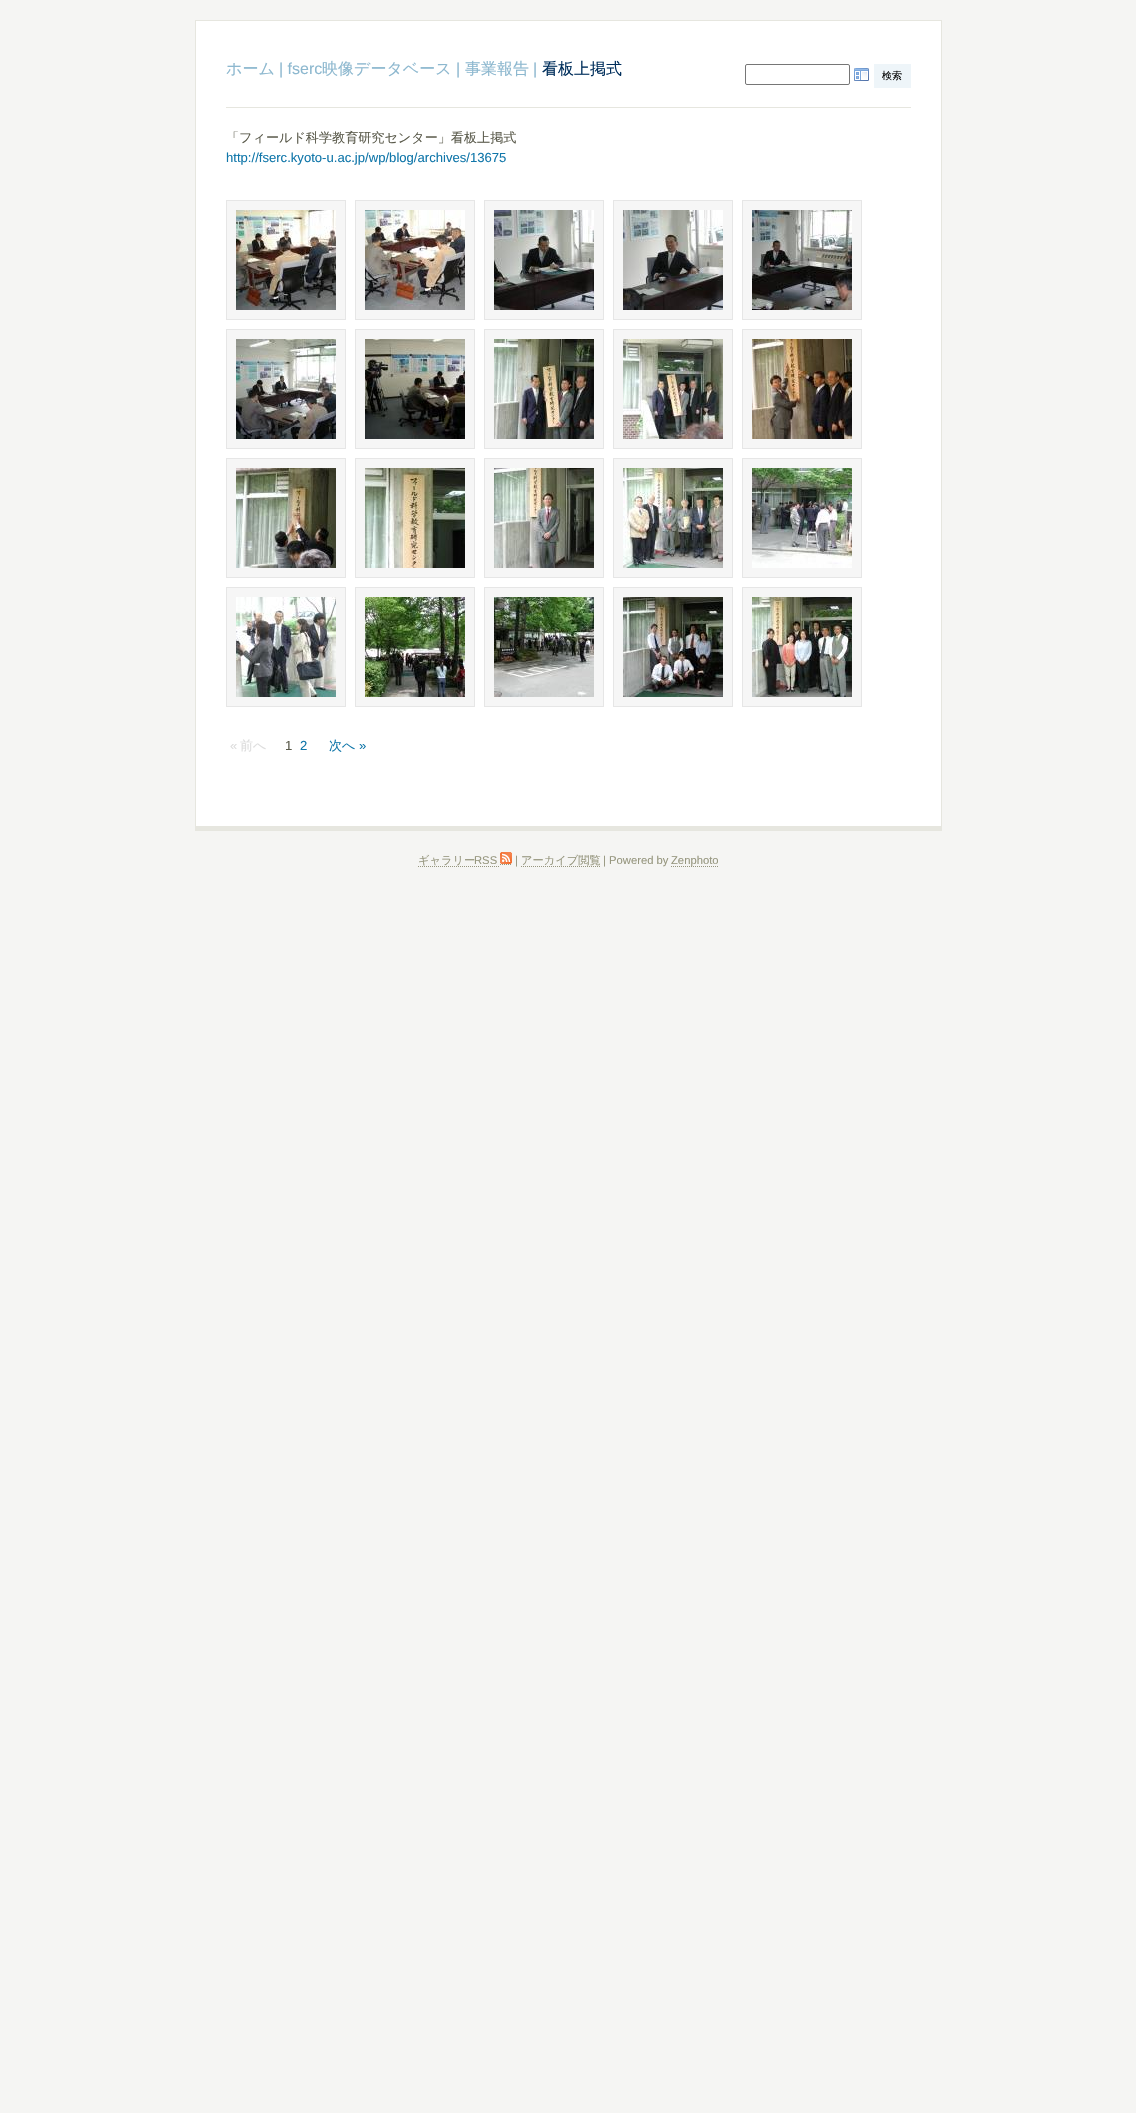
void draw(SkCanvas* c) {
SkPaint p;
p.setAntiAlias(true);
auto F=[&](const char* family, int weight, float size, bool italic = false){SkFontStyle style(weight, SkFontStyle::kNormal_Width,italic ? SkFontStyle::kItalic_Slant : SkFontStyle::kUpright_Slant);SkFont result(fontMgr->matchFamilyStyle(family, style), size);result.setSubpixel(true);return result;};
auto T=[&](const char* s, float x, float y, const SkFont& font){c->drawString(s, x, y, font, p);};
auto R=[&](float x, float y, float w, float h){c->drawRect(SkRect::MakeXYWH(x, y, w, h), p);};
auto I=[&](const char* path, float x, float y, float w, float h){auto image = SkImages::DeferredFromEncodedData(SkData::MakeFromFileName(path));c->drawImageRect(image, SkRect::MakeXYWH(x, y, w, h), SkSamplingOptions());};
auto P=[&](const char* data, bool evenOdd = false){SkPath result = *SkParsePath::FromSVGString(data);if (evenOdd) result.setFillType(SkPathFillType::kEvenOdd);return result;};
c->clear(0xfff5f5f3);
p.setColor(0xffffffff);
R(196,21,745,805);
p.setColor(0xffe6e6df);
R(195,20,747,1);
R(941,20,1,811);
R(195,826,747,5);
R(195,20,1,811);
R(226,107,685,1);
auto f1 = F("WenQuanYi Zen Hei",500,16);
p.setColor(0xff8db8cf);
T("ホーム",226,74,f1);
auto f2 = F("Liberation Sans",400,16);
T("| fserc",279,74,f2);
T("映像データベース",322,74,f1);
T("|",456,74,f2);
T("事業報告",465,74,f1);
T("|",533,74,f2);
p.setColor(0xff002e5b);
T("看板上掲式",542,74,f1);
p.setStroke(true);
p.setStrokeWidth(1);
p.setColor(0xff767676);
c->drawRoundRect(SkRect::MakeXYWH(745.5,64.5,104,20),1.5,1.5,p);
I("1.png",854,68,15,13);
p.setStroke(false);
p.setColor(0xffeef5f9);
R(874,64,37,24);
auto f3 = F("WenQuanYi Zen Hei",500,10);
p.setColor(0xff000000);
T("検索",882,79,f3);
auto f4 = F("WenQuanYi Zen Hei",500,13.1);
p.setColor(0xff5a5a4b);
T("「フィールド科学教育研究センター」看板上掲式",226,142,f4);
auto f5 = F("Liberation Sans",400,13.1);
p.setColor(0xff1177aa);
T("http://fserc.kyoto-u.ac.jp/wp/blog/archives/13675",226,162,f5);
p.setColor(0xfff6f6f6);
c->drawRect(SkRect::MakeXYWH(226.5,200.5,119,119),p);
p.setStroke(true);
p.setColor(0xffe6e6e6);
c->drawRect(SkRect::MakeXYWH(226.5,200.5,119,119),p);
I("2.png",236,210,100,100);
p.setStroke(false);
p.setColor(0xfff6f6f6);
c->drawRect(SkRect::MakeXYWH(355.5,200.5,119,119),p);
p.setStroke(true);
p.setColor(0xffe6e6e6);
c->drawRect(SkRect::MakeXYWH(355.5,200.5,119,119),p);
I("3.png",365,210,100,100);
p.setStroke(false);
p.setColor(0xfff6f6f6);
c->drawRect(SkRect::MakeXYWH(484.5,200.5,119,119),p);
p.setStroke(true);
p.setColor(0xffe6e6e6);
c->drawRect(SkRect::MakeXYWH(484.5,200.5,119,119),p);
I("4.png",494,210,100,100);
p.setStroke(false);
p.setColor(0xfff6f6f6);
c->drawRect(SkRect::MakeXYWH(613.5,200.5,119,119),p);
p.setStroke(true);
p.setColor(0xffe6e6e6);
c->drawRect(SkRect::MakeXYWH(613.5,200.5,119,119),p);
I("5.png",623,210,100,100);
p.setStroke(false);
p.setColor(0xfff6f6f6);
c->drawRect(SkRect::MakeXYWH(742.5,200.5,119,119),p);
p.setStroke(true);
p.setColor(0xffe6e6e6);
c->drawRect(SkRect::MakeXYWH(742.5,200.5,119,119),p);
I("6.png",752,210,100,100);
p.setStroke(false);
p.setColor(0xfff6f6f6);
c->drawRect(SkRect::MakeXYWH(226.5,329.5,119,119),p);
p.setStroke(true);
p.setColor(0xffe6e6e6);
c->drawRect(SkRect::MakeXYWH(226.5,329.5,119,119),p);
I("7.png",236,339,100,100);
p.setStroke(false);
p.setColor(0xfff6f6f6);
c->drawRect(SkRect::MakeXYWH(355.5,329.5,119,119),p);
p.setStroke(true);
p.setColor(0xffe6e6e6);
c->drawRect(SkRect::MakeXYWH(355.5,329.5,119,119),p);
I("8.png",365,339,100,100);
p.setStroke(false);
p.setColor(0xfff6f6f6);
c->drawRect(SkRect::MakeXYWH(484.5,329.5,119,119),p);
p.setStroke(true);
p.setColor(0xffe6e6e6);
c->drawRect(SkRect::MakeXYWH(484.5,329.5,119,119),p);
I("9.png",494,339,100,100);
p.setStroke(false);
p.setColor(0xfff6f6f6);
c->drawRect(SkRect::MakeXYWH(613.5,329.5,119,119),p);
p.setStroke(true);
p.setColor(0xffe6e6e6);
c->drawRect(SkRect::MakeXYWH(613.5,329.5,119,119),p);
I("10.png",623,339,100,100);
p.setStroke(false);
p.setColor(0xfff6f6f6);
c->drawRect(SkRect::MakeXYWH(742.5,329.5,119,119),p);
p.setStroke(true);
p.setColor(0xffe6e6e6);
c->drawRect(SkRect::MakeXYWH(742.5,329.5,119,119),p);
I("11.png",752,339,100,100);
p.setStroke(false);
p.setColor(0xfff6f6f6);
c->drawRect(SkRect::MakeXYWH(226.5,458.5,119,119),p);
p.setStroke(true);
p.setColor(0xffe6e6e6);
c->drawRect(SkRect::MakeXYWH(226.5,458.5,119,119),p);
I("12.png",236,468,100,100);
p.setStroke(false);
p.setColor(0xfff6f6f6);
c->drawRect(SkRect::MakeXYWH(355.5,458.5,119,119),p);
p.setStroke(true);
p.setColor(0xffe6e6e6);
c->drawRect(SkRect::MakeXYWH(355.5,458.5,119,119),p);
I("13.png",365,468,100,100);
p.setStroke(false);
p.setColor(0xfff6f6f6);
c->drawRect(SkRect::MakeXYWH(484.5,458.5,119,119),p);
p.setStroke(true);
p.setColor(0xffe6e6e6);
c->drawRect(SkRect::MakeXYWH(484.5,458.5,119,119),p);
I("14.png",494,468,100,100);
p.setStroke(false);
p.setColor(0xfff6f6f6);
c->drawRect(SkRect::MakeXYWH(613.5,458.5,119,119),p);
p.setStroke(true);
p.setColor(0xffe6e6e6);
c->drawRect(SkRect::MakeXYWH(613.5,458.5,119,119),p);
I("15.png",623,468,100,100);
p.setStroke(false);
p.setColor(0xfff6f6f6);
c->drawRect(SkRect::MakeXYWH(742.5,458.5,119,119),p);
p.setStroke(true);
p.setColor(0xffe6e6e6);
c->drawRect(SkRect::MakeXYWH(742.5,458.5,119,119),p);
I("16.png",752,468,100,100);
p.setStroke(false);
p.setColor(0xfff6f6f6);
c->drawRect(SkRect::MakeXYWH(226.5,587.5,119,119),p);
p.setStroke(true);
p.setColor(0xffe6e6e6);
c->drawRect(SkRect::MakeXYWH(226.5,587.5,119,119),p);
I("17.png",236,597,100,100);
p.setStroke(false);
p.setColor(0xfff6f6f6);
c->drawRect(SkRect::MakeXYWH(355.5,587.5,119,119),p);
p.setStroke(true);
p.setColor(0xffe6e6e6);
c->drawRect(SkRect::MakeXYWH(355.5,587.5,119,119),p);
I("18.png",365,597,100,100);
p.setStroke(false);
p.setColor(0xfff6f6f6);
c->drawRect(SkRect::MakeXYWH(484.5,587.5,119,119),p);
p.setStroke(true);
p.setColor(0xffe6e6e6);
c->drawRect(SkRect::MakeXYWH(484.5,587.5,119,119),p);
I("19.png",494,597,100,100);
p.setStroke(false);
p.setColor(0xfff6f6f6);
c->drawRect(SkRect::MakeXYWH(613.5,587.5,119,119),p);
p.setStroke(true);
p.setColor(0xffe6e6e6);
c->drawRect(SkRect::MakeXYWH(613.5,587.5,119,119),p);
I("20.png",623,597,100,100);
p.setStroke(false);
p.setColor(0xfff6f6f6);
c->drawRect(SkRect::MakeXYWH(742.5,587.5,119,119),p);
p.setStroke(true);
p.setColor(0xffe6e6e6);
c->drawRect(SkRect::MakeXYWH(742.5,587.5,119,119),p);
I("21.png",752,597,100,100);
p.setStroke(false);
p.setColor(0xffdddddd);
T("«",230,750,f5);
T("前へ",240,750,f4);
p.setColor(0xff5a5a4b);
T("1",285,750,f5);
p.setColor(0xff1177aa);
T("2",300,750,f5);
T("次へ",329,750,f4);
T("»",359,750,f5);
auto f6 = F("WenQuanYi Zen Hei",500,11.25);
p.setColor(0xff96967e);
T("ギャラリー",418,864,f6);
auto f7 = F("Liberation Sans",400,11.25);
T("RSS",474,864,f7);
p.setStroke(true);
p.setPathEffect(SkDashPathEffect::Make({{1,1}}, 0));
c->drawPath(P("M418 866.5h82"),p);
p.setPathEffect(nullptr);
p.setPathEffect(SkDashPathEffect::Make({{1,1}}, 0));
c->drawPath(P("M500 864.5h12"),p);
p.setPathEffect(nullptr);
I("22.png",500,852,12,12);
p.setStroke(false);
T("|",515,864,f7);
T("アーカイブ閲覧",521,864,f6);
p.setStroke(true);
p.setPathEffect(SkDashPathEffect::Make({{1,1}}, 0));
c->drawPath(P("M521 866.5h79"),p);
p.setPathEffect(nullptr);
p.setStroke(false);
T("| Powered by",603,864,f7);
p.setStroke(true);
p.setPathEffect(SkDashPathEffect::Make({{1,1}}, 0));
c->drawPath(P("M671 866.5h47"),p);
p.setPathEffect(nullptr);
p.setStroke(false);
T("Zenphoto",671,864,f7);
}
